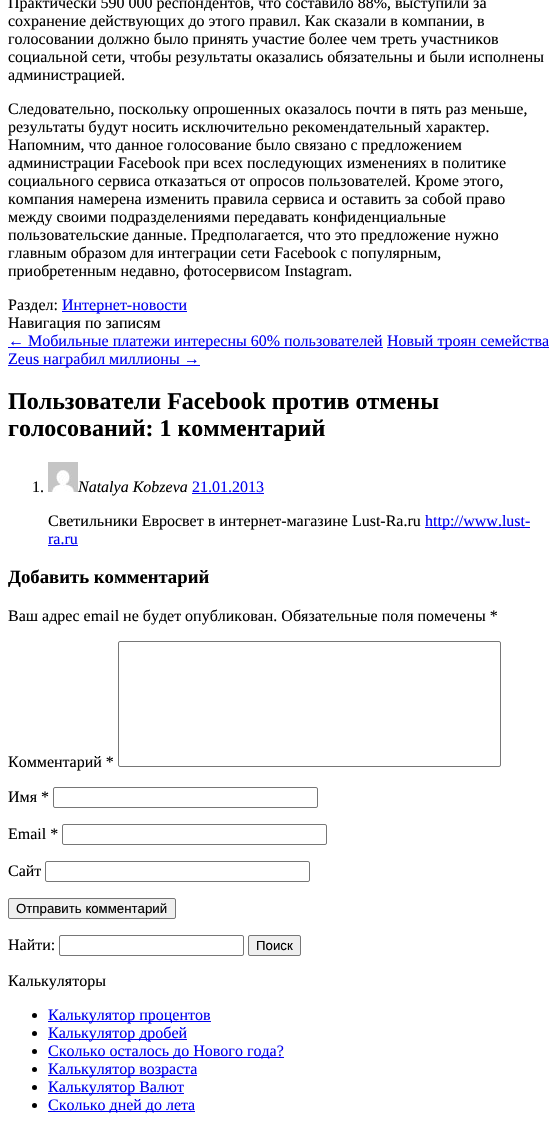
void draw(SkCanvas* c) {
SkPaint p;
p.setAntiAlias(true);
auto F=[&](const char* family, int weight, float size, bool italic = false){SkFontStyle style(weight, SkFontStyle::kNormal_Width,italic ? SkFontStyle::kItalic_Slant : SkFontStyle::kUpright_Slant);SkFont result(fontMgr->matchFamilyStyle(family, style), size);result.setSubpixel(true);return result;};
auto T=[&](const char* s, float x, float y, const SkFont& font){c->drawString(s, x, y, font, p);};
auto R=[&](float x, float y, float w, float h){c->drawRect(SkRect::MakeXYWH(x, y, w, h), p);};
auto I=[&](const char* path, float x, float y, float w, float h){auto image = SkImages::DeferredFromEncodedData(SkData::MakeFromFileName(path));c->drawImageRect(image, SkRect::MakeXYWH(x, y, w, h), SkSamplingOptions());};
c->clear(0xffffffff);
auto f1 = F("Liberation Serif",400,16);
p.setColor(0xff000000);
T("Практически 590 000 респондентов, что составило 88%, выступили за",8,8,f1);
T("сохранение действующих до этого правил. Как сказали в компании, в",8,26,f1);
T("голосовании должно было принять участие более чем треть участников",8,44,f1);
T("социальной сети, чтобы результаты оказались обязательны и были исполнены",8,62,f1);
T("администрацией.",8,80,f1);
T("Следовательно, поскольку опрошенных оказалось почти в пять раз меньше,",8,114,f1);
T("результаты будут носить исключительно рекомендательный характер.",8,132,f1);
T("Напомним, что данное голосование было связано с предложением",8,150,f1);
T("администрации Facebook при всех последующих изменениях в политике",8,168,f1);
T("социального сервиса отказаться от опросов пользователей. Кроме этого,",8,186,f1);
T("компания намерена изменить правила сервиса и оставить за собой право",8,204,f1);
T("между своими подразделениями передавать конфиденциальные",8,222,f1);
T("пользовательские данные. Предполагается, что это предложение нужно",8,240,f1);
T("главным образом для интеграции сети Facebook с популярным,",8,258,f1);
T("приобретенным недавно, фотосервисом Instagram.",8,276,f1);
T("Раздел:",8,310,f1);
p.setColor(0xff0000ee);
R(62,311,125,1);
T("Интернет-новости",62,310,f1);
p.setColor(0xff000000);
T("Навигация по записям",8,328,f1);
p.setColor(0xff0000ee);
R(8,347,375,1);
T("← Мобильные платежи интересны 60% пользователей",8,346,f1);
R(387,347,162,1);
T("Новый троян семейства",387,346,f1);
R(8,365,192,1);
T("Zeus награбил миллионы →",8,364,f1);
auto f2 = F("Liberation Serif",700,24);
p.setColor(0xff000000);
T("Пользователи Facebook против отмены",8,409,f2);
T("голосований: 1 комментарий",8,436,f2);
T("1.",32,492,f1);
I("1.png",48,462,30,30);
auto f3 = F("Liberation Serif",400,16,true);
T("Natalya Kobzeva",78,492,f3);
p.setColor(0xff0000ee);
T("21.01.2013",192,492,f1);
R(192,493,72,1);
p.setColor(0xff000000);
T("Светильники Евросвет в интернет-магазине Lust-Ra.ru",48,526,f1);
p.setColor(0xff0000ee);
R(425,527,105,1);
T("http://www.lust-",425,526,f1);
T("ra.ru",48,544,f1);
R(48,545,30,1);
auto f4 = F("Liberation Serif",700,18.75);
p.setColor(0xff000000);
T("Добавить комментарий",8,583,f4);
T("Ваш адрес email не будет опубликован. Обязательные поля помечены *",8,621,f1);
T("Комментарий *",8,767,f1);
p.setStroke(true);
p.setStrokeWidth(1);
p.setColor(0xff767676);
c->drawRoundRect(SkRect::MakeXYWH(118.5,641.5,382,125),1.5,1.5,p);
p.setStroke(false);
p.setColor(0xff000000);
T("Имя *",8,802,f1);
p.setStroke(true);
p.setColor(0xff767676);
c->drawRoundRect(SkRect::MakeXYWH(53.5,787.5,264,20),1.5,1.5,p);
p.setStroke(false);
p.setColor(0xff000000);
T("Email *",8,839,f1);
p.setStroke(true);
p.setColor(0xff767676);
c->drawRoundRect(SkRect::MakeXYWH(62.5,824.5,264,20),1.5,1.5,p);
p.setStroke(false);
p.setColor(0xff000000);
T("Сайт",8,876,f1);
p.setStroke(true);
p.setColor(0xff767676);
c->drawRoundRect(SkRect::MakeXYWH(45.5,861.5,264,20),1.5,1.5,p);
p.setStroke(false);
p.setColor(0xffefefef);
c->drawRoundRect(SkRect::MakeXYWH(8.5,898.5,167,20),1.5,1.5,p);
p.setStroke(true);
p.setColor(0xff767676);
c->drawRoundRect(SkRect::MakeXYWH(8.5,898.5,167,20),1.5,1.5,p);
auto f5 = F("Liberation Sans",400,13.25);
p.setStroke(false);
p.setColor(0xff000000);
T("Отправить комментарий",16,913,f5);
T("Найти:",8,950,f1);
p.setStroke(true);
p.setColor(0xff767676);
c->drawRoundRect(SkRect::MakeXYWH(59.5,935.5,184,20),1.5,1.5,p);
p.setStroke(false);
p.setColor(0xffefefef);
c->drawRoundRect(SkRect::MakeXYWH(248.5,935.5,52,20),1.5,1.5,p);
p.setStroke(true);
p.setColor(0xff767676);
c->drawRoundRect(SkRect::MakeXYWH(248.5,935.5,52,20),1.5,1.5,p);
p.setStroke(false);
p.setColor(0xff000000);
T("Поиск",256,950,f5);
T("Калькуляторы",8,986,f1);
c->drawCircle(34.5,1015.5,2.5,p);
p.setColor(0xff0000ee);
R(48,1021,163,1);
T("Калькулятор процентов",48,1020,f1);
p.setColor(0xff000000);
c->drawCircle(34.5,1033.5,2.5,p);
p.setColor(0xff0000ee);
R(48,1039,139,1);
T("Калькулятор дробей",48,1038,f1);
p.setColor(0xff000000);
c->drawCircle(34.5,1051.5,2.5,p);
p.setColor(0xff0000ee);
R(48,1057,236,1);
T("Сколько осталось до Нового года?",48,1056,f1);
p.setColor(0xff000000);
c->drawCircle(34.5,1069.5,2.5,p);
p.setColor(0xff0000ee);
R(48,1075,149,1);
T("Калькулятор возраста",48,1074,f1);
p.setColor(0xff000000);
c->drawCircle(34.5,1087.5,2.5,p);
p.setColor(0xff0000ee);
R(48,1093,136,1);
T("Калькулятор Валют",48,1092,f1);
p.setColor(0xff000000);
c->drawCircle(34.5,1105.5,2.5,p);
p.setColor(0xff0000ee);
R(48,1111,147,1);
T("Сколько дней до лета",48,1110,f1);
}
